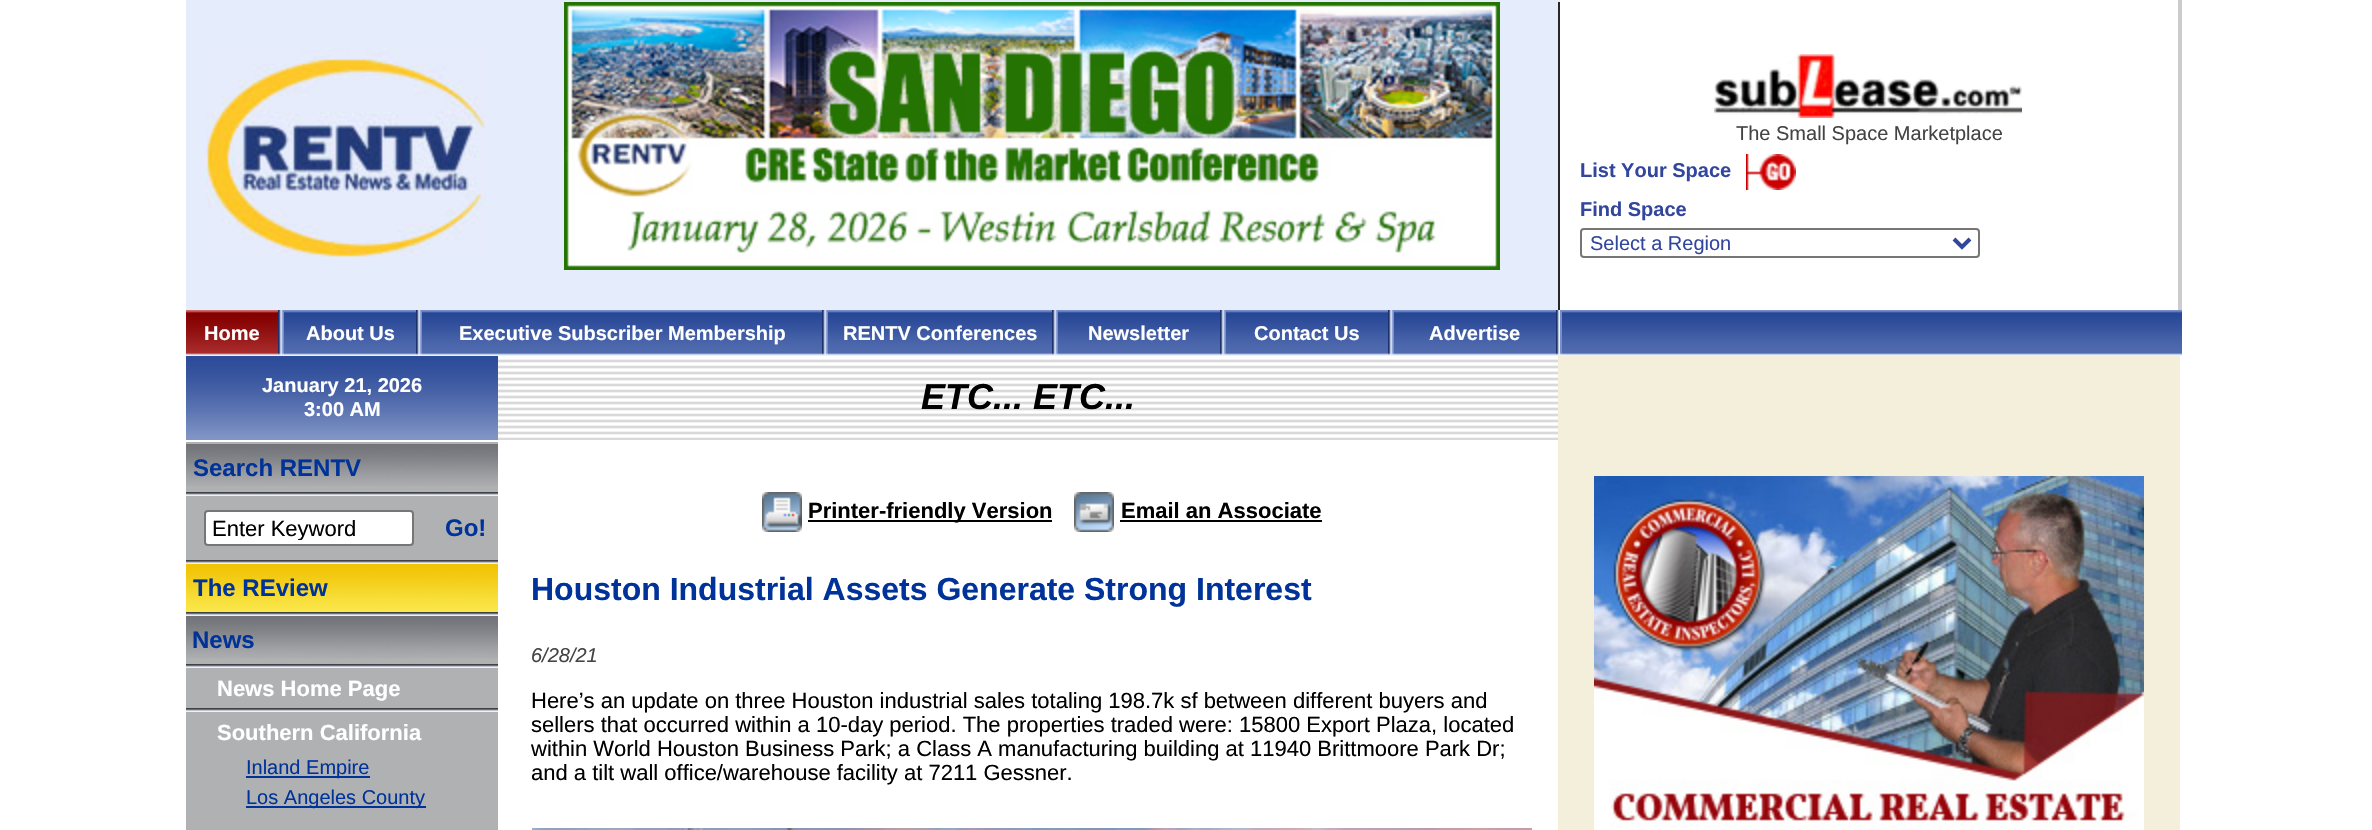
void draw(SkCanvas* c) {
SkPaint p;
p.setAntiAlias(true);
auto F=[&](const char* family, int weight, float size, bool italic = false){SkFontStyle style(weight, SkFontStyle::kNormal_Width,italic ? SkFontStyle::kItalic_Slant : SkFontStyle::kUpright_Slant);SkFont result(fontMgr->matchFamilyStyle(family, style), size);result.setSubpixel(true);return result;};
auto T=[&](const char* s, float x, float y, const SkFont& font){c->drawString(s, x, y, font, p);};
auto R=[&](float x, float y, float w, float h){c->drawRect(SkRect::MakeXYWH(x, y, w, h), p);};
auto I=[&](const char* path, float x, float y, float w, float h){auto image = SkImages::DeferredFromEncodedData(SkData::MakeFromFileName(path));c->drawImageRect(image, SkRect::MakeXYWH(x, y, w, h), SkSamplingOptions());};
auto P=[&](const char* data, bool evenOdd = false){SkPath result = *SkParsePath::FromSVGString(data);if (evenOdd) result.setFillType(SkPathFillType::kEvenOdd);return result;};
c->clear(0xffffffff);
p.setColor(0xffe5ecfc);
R(186,0,1374,310);
I("1.png",206,48,280,209);
I("2.png",564,2,936,268);
p.setColor(0xff262729);
R(1558,2,2,308);
I("3.png",1714,54,308,64);
auto f1 = F("Liberation Sans",400,20);
p.setColor(0xff444444);
T("The Small Space Marketplace",1736,140,f1);
auto f2 = F("Liberation Sans",700,20);
p.setColor(0xff32469d);
T("List Your Space",1580,177,f2);
I("4.png",1746,154,50,36);
T("Find Space",1580,216,f2);
p.setStroke(true);
p.setStrokeWidth(2);
p.setColor(0xff767676);
c->drawRoundRect(SkRect::MakeXYWH(1581,229,398,28),3,3,p);
p.setStrokeWidth(4);
p.setColor(0xff32469d);
c->drawPath(P("M1954 239l8 8l8-8"),p);
p.setStroke(false);
T("Select a Region",1590,250,f1);
p.setColor(0xffcccccc);
R(2178,0,4,310);
I("5.png",186,310,1374,46);
I("6.png",186,310,92,45);
p.setColor(0xffffffff);
T("Home",204,340,f2);
I("7.png",278,310,6,45);
T("About Us",306,340,f2);
I("7.png",416,310,6,45);
T("Executive Subscriber Membership",459,340,f2);
I("7.png",822,310,6,45);
T("RENTV Conferences",843,340,f2);
I("7.png",1052,310,6,45);
T("Newsletter",1088,340,f2);
I("7.png",1220,310,6,45);
T("Contact Us",1254,340,f2);
I("7.png",1388,310,6,45);
T("Advertise",1429,340,f2);
I("8.png",1556,310,4,45);
I("9.png",1560,310,622,46);
I("10.png",1560,311,2,44);
p.setColor(0xffb0b1b3);
R(186,442,312,388);
I("11.png",186,356,312,84);
p.setColor(0xffffffff);
T("January 21, 2026",262,392,f2);
T("3:00 AM",304,416,f2);
I("12.png",186,444,312,42);
auto f3 = F("Liberation Sans",700,24);
p.setColor(0xff003399);
T("Search RENTV",193,476,f3);
I("13.png",186,492,312,4);
p.setColor(0xffffffff);
c->drawRoundRect(SkRect::MakeXYWH(205,511,208,34),3,3,p);
p.setStroke(true);
p.setStrokeWidth(2);
p.setColor(0xff767676);
c->drawRoundRect(SkRect::MakeXYWH(205,511,208,34),3,3,p);
c->save();
c->clipRect(SkRect::MakeXYWH(212,516,194,24));
auto f4 = F("Liberation Sans",400,22);
p.setStroke(false);
p.setColor(0xff000000);
T("Enter Keyword",212,536,f4);
c->restore();
p.setColor(0xff003399);
T("Go!",445,536,f3);
I("13.png",186,560,312,4);
I("14.png",186,564,312,48);
T("The REview",193,596,f3);
I("13.png",186,612,312,4);
I("12.png",186,616,312,42);
T("News",192,648,f3);
I("13.png",186,664,312,4);
auto f5 = F("Liberation Sans",700,22);
p.setColor(0xffffffff);
T("News Home Page",217,696,f5);
I("13.png",186,708,312,4);
T("Southern California",217,740,f5);
p.setColor(0xff003399);
R(246,776,124,2);
T("Inland Empire",246,774,f1);
R(246,806,180,2);
T("Los Angeles County",246,804,f1);
I("15.png",498,359,1060,81);
auto f6 = F("Liberation Sans",700,36,true);
p.setColor(0xff000000);
T("ETC... ETC...",921,409,f6);
I("16.png",762,492,40,40);
R(808,520,244,2);
T("Printer-friendly Version",808,518,f5);
I("17.png",1074,492,40,40);
T("Email an Associate",1121,518,f5);
R(1120,520,202,2);
auto f7 = F("Liberation Sans",700,32);
p.setColor(0xff003399);
T("Houston Industrial Assets Generate Strong Interest",531,600,f7);
auto f8 = F("Liberation Sans",400,20,true);
p.setColor(0xff444444);
T("6/28/21",531,662,f8);
p.setColor(0xff000000);
T("Here’s an update on three Houston industrial sales totaling 198.7k sf between different buyers and",531,708,f4);
T("sellers that occurred within a 10-day period. The properties traded were: 15800 Export Plaza, located",531,732,f4);
T("within World Houston Business Park; a Class A manufacturing building at 11940 Brittmoore Park Dr;",531,756,f4);
T("and a tilt wall office/warehouse facility at 7211 Gessner.",531,780,f4);
I("18.png",532,828,1000,2);
p.setColor(0xfff4efda);
R(1558,356,622,474);
I("19.png",1594,476,550,354);
}
